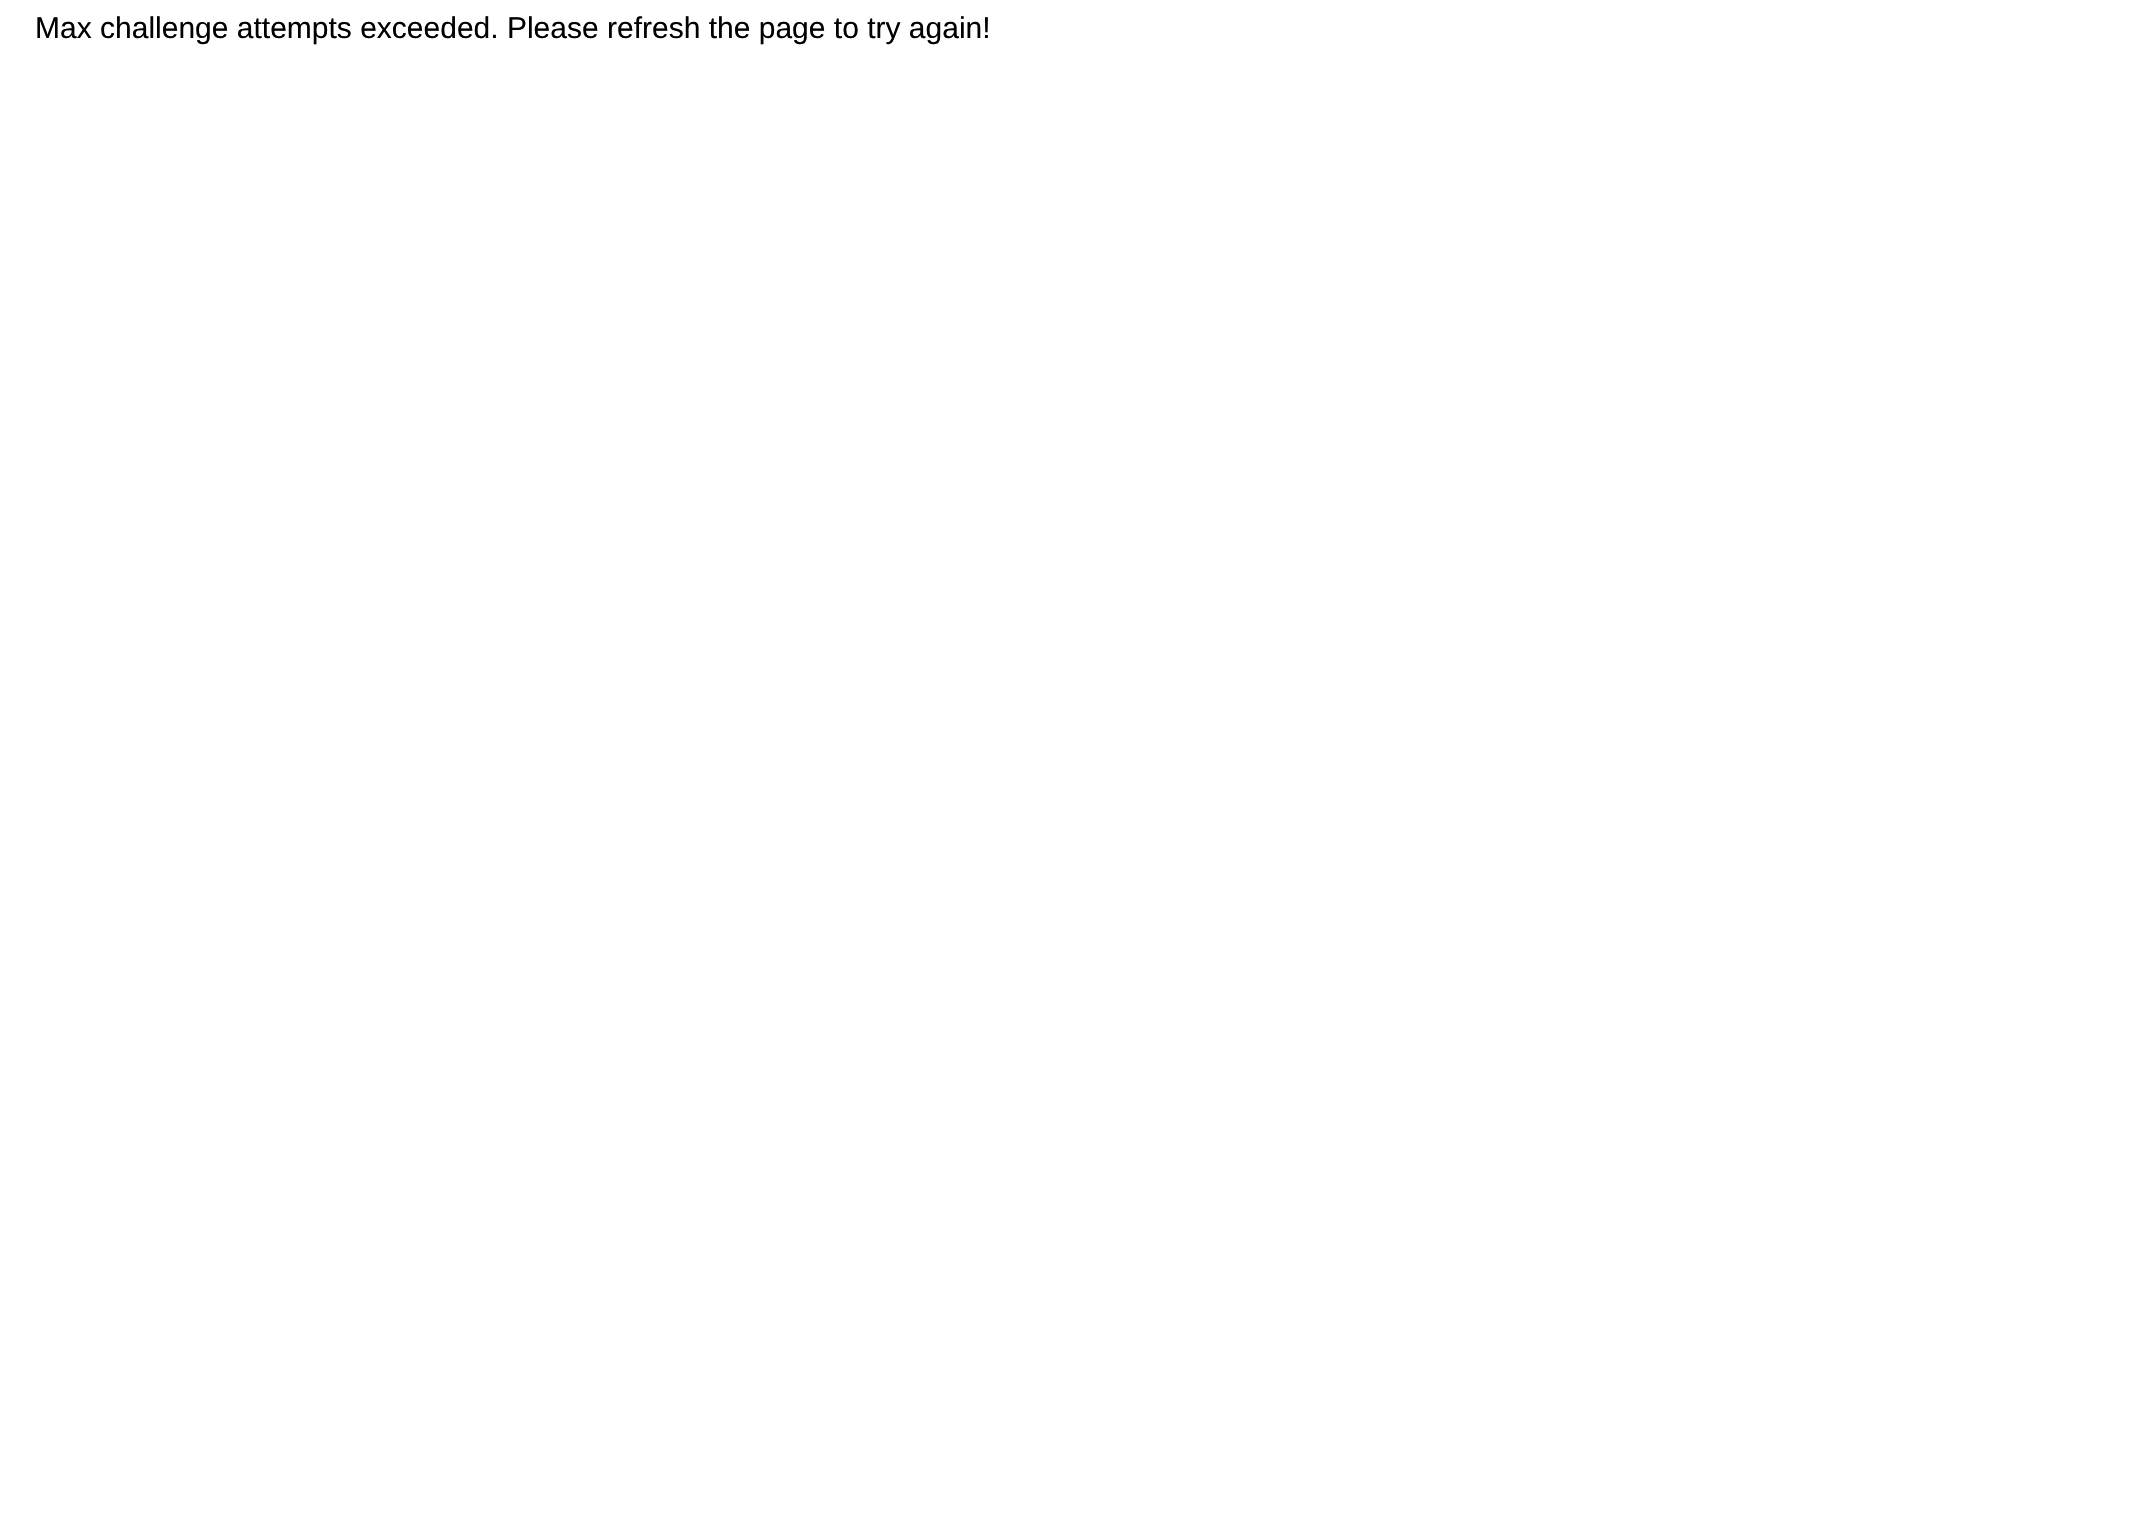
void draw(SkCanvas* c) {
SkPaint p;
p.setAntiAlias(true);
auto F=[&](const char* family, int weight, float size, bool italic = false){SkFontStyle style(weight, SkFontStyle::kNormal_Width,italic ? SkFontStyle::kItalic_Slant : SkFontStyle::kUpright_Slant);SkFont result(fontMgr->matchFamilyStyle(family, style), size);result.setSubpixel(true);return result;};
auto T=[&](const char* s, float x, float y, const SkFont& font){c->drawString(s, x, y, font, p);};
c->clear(0xffffffff);
auto f1 = F("Liberation Sans",400,30);
p.setColor(0xff000000);
T("Max challenge attempts exceeded. Please refresh the page to try again!",35,38,f1);
}
